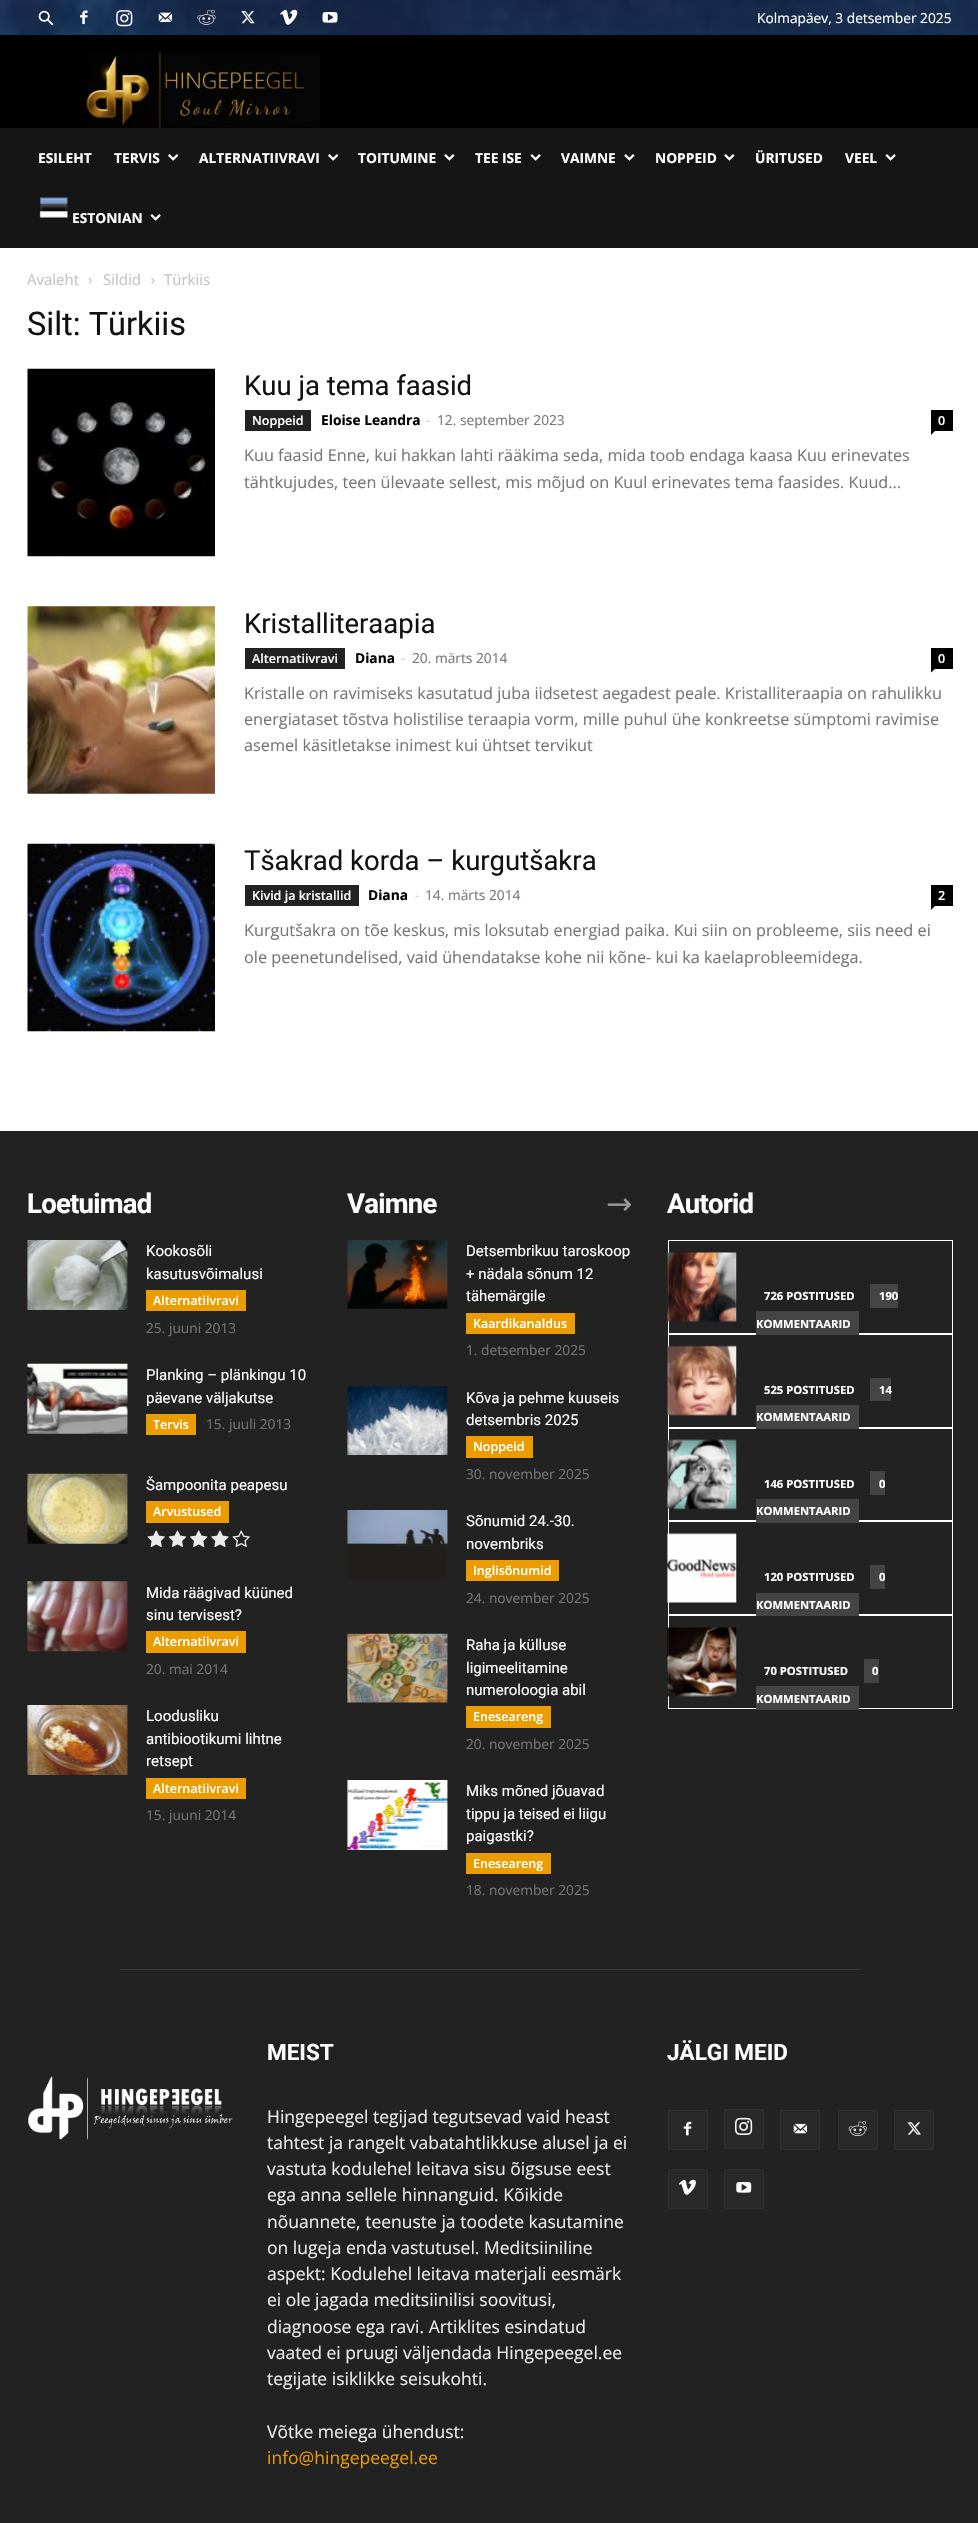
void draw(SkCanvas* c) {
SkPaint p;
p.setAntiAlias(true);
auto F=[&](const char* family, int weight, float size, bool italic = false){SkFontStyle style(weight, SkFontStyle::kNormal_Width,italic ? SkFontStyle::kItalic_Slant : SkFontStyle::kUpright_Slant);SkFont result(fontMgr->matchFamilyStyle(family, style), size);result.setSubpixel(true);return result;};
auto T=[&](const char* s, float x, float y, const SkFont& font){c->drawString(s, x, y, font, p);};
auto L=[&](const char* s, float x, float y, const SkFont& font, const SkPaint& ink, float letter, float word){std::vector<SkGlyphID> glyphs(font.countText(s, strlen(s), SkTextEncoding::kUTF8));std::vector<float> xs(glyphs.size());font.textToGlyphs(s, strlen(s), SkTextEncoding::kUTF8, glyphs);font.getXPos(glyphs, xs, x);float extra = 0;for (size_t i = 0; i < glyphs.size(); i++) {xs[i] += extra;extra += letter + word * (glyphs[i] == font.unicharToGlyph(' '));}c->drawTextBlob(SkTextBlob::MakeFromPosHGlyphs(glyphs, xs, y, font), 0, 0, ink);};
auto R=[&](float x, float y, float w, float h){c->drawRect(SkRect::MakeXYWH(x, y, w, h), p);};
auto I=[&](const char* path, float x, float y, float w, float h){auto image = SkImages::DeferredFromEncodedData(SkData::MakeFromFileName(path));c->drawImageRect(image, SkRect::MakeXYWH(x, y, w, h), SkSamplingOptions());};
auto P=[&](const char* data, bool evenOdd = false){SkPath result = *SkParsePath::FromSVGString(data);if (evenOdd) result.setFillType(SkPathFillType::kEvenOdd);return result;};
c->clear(0xffffffff);
I("1.png",0,0,978,35);
p.setColor(0x6b253877);
R(0,0,978,35);
I("2.png",38,10,16,16);
I("3.png",80,10,8,15);
I("4.png",116,10,17,17);
I("5.png",158,12,15,10);
I("6.png",197,9,19,16);
I("7.png",241,11,14,13);
I("8.png",280,9,18,16);
I("9.png",322,12,16,11);
auto f1 = F("Open Sans",400,13.75);
p.setColor(0xffffffff);
T("Kolmapäev, 3 detsember 2025",757,23,f1);
p.setColor(0xff000000);
R(0,35,978,93);
I("10.png",86,52,235,76);
p.setColor(0xff151515);
R(0,128,978,120);
auto f2 = F("Open Sans",700,13.75);
p.setColor(0xffffffff);
T("ESILEHT",38,163,f2);
T("TERVIS",114,163,f2);
I("11.png",168,154,11,7);
T("ALTERNATIIVRAVI",199,163,f2);
I("11.png",328,154,11,7);
T("TOITUMINE",358,163,f2);
I("12.png",444,154,11,7);
T("TEE ISE",475,163,f2);
I("13.png",530,154,11,7);
T("VAIMNE",561,163,f2);
I("12.png",624,154,11,7);
T("NOPPEID",655,163,f2);
I("12.png",724,154,11,7);
T("ÜRITUSED",755,163,f2);
T("VEEL",845,163,f2);
I("13.png",885,154,11,7);
I("14.png",39,197,29,21);
T("ESTONIAN",72,223,f2);
I("13.png",150,214,11,7);
auto f3 = F("Open Sans",400,15);
p.setColor(0xffc3c3c3);
T("Avaleht",27,285,f3);
I("15.png",88,277,4,7);
T("Sildid",103,285,f3);
I("16.png",151,277,4,7);
T("Türkiis",164,285,f3);
auto f4 = F("Roboto",400,32.5);
p.setColor(0xff111111);
T("Silt: Türkiis",27,335,f4);
I("17.png",27,368,188,189);
auto f5 = F("Roboto",400,27.5);
T("Kuu ja tema faasid",244,395,f5);
p.setColor(0xff222222);
R(245,410,66,21);
auto f6 = F("Open Sans",600,12.5);
p.setColor(0xffffffff);
T("Noppeid",252,425,f6);
p.setColor(0xff000000);
T("Eloise Leandra",321,425,f2);
p.setColor(0xffcccccc);
T("-",426,425,f1);
p.setColor(0xff767676);
T("12. september 2023",437,425,f1);
p.setColor(0xff000000);
R(931,410,22,21);
p.setColor(0xffffffff);
T("0",938,425,f6);
p.setColor(0xff000000);
c->drawPath(P("M931 431h4l-4 4z"),p);
auto f7 = F("Open Sans",400,16.25);
p.setColor(0xff767676);
T("Kuu faasid Enne, kui hakkan lahti rääkima seda, mida toob endaga kaasa Kuu erinevates",244,461,f7);
T("tähtkujudes, teen ülevaate sellest, mis mõjud on Kuul erinevates tema faasides. Kuud...",244,488,f7);
I("18.png",27,606,188,188);
p.setColor(0xff111111);
T("Kristalliteraapia",244,633,f5);
p.setColor(0xff222222);
R(245,648,100,21);
p.setColor(0xffffffff);
T("Alternatiivravi",252,663,f6);
p.setColor(0xff000000);
T("Diana",355,663,f2);
p.setColor(0xffcccccc);
T("-",401,663,f1);
p.setColor(0xff767676);
T("20. märts 2014",412,663,f1);
p.setColor(0xff000000);
R(931,648,22,21);
p.setColor(0xffffffff);
T("0",938,663,f6);
p.setColor(0xff000000);
c->drawPath(P("M931 669h4l-4 3.5z"),p);
p.setColor(0xff767676);
T("Kristalle on ravimiseks kasutatud juba iidsetest aegadest peale. Kristalliteraapia on rahulikku",244,699,f7);
T("energiataset tõstva holistilise teraapia vorm, mille puhul ühe konkreetse sümptomi ravimise",244,725,f7);
T("asemel käsitletakse inimest kui ühtset tervikut",244,751,f7);
I("19.png",27,843,188,189);
p.setColor(0xff111111);
T("Tšakrad korda – kurgutšakra",244,870,f5);
p.setColor(0xff222222);
R(245,885,114,21);
p.setColor(0xffffffff);
T("Kivid ja kristallid",252,900,f6);
p.setColor(0xff000000);
T("Diana",368,900,f2);
p.setColor(0xffcccccc);
T("-",415,900,f1);
p.setColor(0xff767676);
T("14. märts 2014",425,900,f1);
p.setColor(0xff000000);
R(931,885,22,21);
p.setColor(0xffffffff);
T("2",938,900,f6);
p.setColor(0xff000000);
c->drawPath(P("M931 906h4l-4 4z"),p);
p.setColor(0xff767676);
T("Kurgutšakra on tõe keskus, mis loksutab energiad paika. Kui siin on probleeme, siis need ei",244,936,f7);
T("ole peenetundelised, vaid ühendatakse kohe nii kõne- kui ka kaelaprobleemidega.",244,963,f7);
p.setColor(0xff222222);
R(0,1131,978,1392);
auto f8 = F("Roboto",700,27.5);
p.setColor(0xffffffff);
L("Loetuimad",27,1213,f8,p,-.75,0);
I("20.png",27,1240,101,70);
auto f9 = F("Roboto",400,15);
T("Kookosõli",146,1256,f9);
T("kasutusvõimalusi",146,1279,f9);
p.setColor(0xffea9c00);
R(146,1290,100,21);
p.setColor(0xffffffff);
T("Alternatiivravi",153,1305,f6);
p.setColor(0xff767676);
T("25. juuni 2013",146,1333,f1);
I("21.png",27,1363,101,71);
p.setColor(0xffffffff);
T("Planking – plänkingu 10",146,1380,f9);
T("päevane väljakutse",146,1403,f9);
p.setColor(0xffea9c00);
R(146,1414,50,21);
p.setColor(0xffffffff);
T("Tervis",153,1429,f6);
p.setColor(0xff767676);
T("15. juuli 2013",206,1429,f1);
I("22.png",27,1473,101,71);
p.setColor(0xffffffff);
T("Šampoonita peapesu",146,1490,f9);
p.setColor(0xffea9c00);
R(146,1501,83,22);
p.setColor(0xffffffff);
T("Arvustused",153,1516,f6);
I("23.png",147,1530,18,17);
I("24.png",168,1530,19,17);
I("25.png",190,1530,18,17);
I("26.png",211,1530,18,17);
I("27.png",232,1530,18,17);
I("28.png",27,1581,101,71);
T("Mida räägivad küüned",146,1598,f9);
T("sinu tervisest?",146,1620,f9);
p.setColor(0xffea9c00);
R(146,1631,100,22);
p.setColor(0xffffffff);
T("Alternatiivravi",153,1646,f6);
p.setColor(0xff767676);
T("20. mai 2014",146,1674,f1);
I("29.png",27,1705,101,70);
p.setColor(0xffffffff);
T("Loodusliku",146,1721,f9);
T("antibiootikumi lihtne",146,1744,f9);
T("retsept",146,1766,f9);
p.setColor(0xffea9c00);
R(146,1778,100,21);
p.setColor(0xffffffff);
T("Alternatiivravi",153,1793,f6);
p.setColor(0xff767676);
T("15. juuni 2014",146,1820,f1);
p.setColor(0xffffffff);
L("Vaimne",347,1213,f8,p,-.75,0);
I("30.png",607,1198,24,13);
I("31.png",347,1240,101,69);
T("Detsembrikuu taroskoop",466,1256,f9);
T("+ nädala sõnum 12",466,1279,f9);
T("tähemärgile",466,1301,f9);
p.setColor(0xffea9c00);
R(466,1313,109,21);
p.setColor(0xffffffff);
T("Kaardikanaldus",473,1328,f6);
p.setColor(0xff767676);
T("1. detsember 2025",466,1355,f1);
I("32.png",347,1386,101,69);
p.setColor(0xffffffff);
T("Kõva ja pehme kuuseis",466,1403,f9);
T("detsembris 2025",466,1425,f9);
p.setColor(0xffea9c00);
R(466,1436,67,22);
p.setColor(0xffffffff);
T("Noppeid",473,1451,f6);
p.setColor(0xff767676);
T("30. november 2025",466,1479,f1);
I("33.png",347,1510,101,69);
p.setColor(0xffffffff);
T("Sõnumid 24.-30.",466,1526,f9);
T("novembriks",466,1549,f9);
p.setColor(0xffea9c00);
R(466,1560,93,21);
p.setColor(0xffffffff);
T("Inglisõnumid",473,1575,f6);
p.setColor(0xff767676);
T("24. november 2025",466,1603,f1);
I("34.png",347,1633,101,70);
p.setColor(0xffffffff);
T("Raha ja külluse",466,1650,f9);
T("ligimeelitamine",466,1673,f9);
T("numeroloogia abil",466,1695,f9);
p.setColor(0xffea9c00);
R(466,1706,85,22);
p.setColor(0xffffffff);
T("Eneseareng",473,1721,f6);
p.setColor(0xff767676);
T("20. november 2025",466,1749,f1);
I("35.png",347,1780,101,70);
p.setColor(0xffffffff);
T("Miks mõned jõuavad",466,1796,f9);
T("tippu ja teised ei liigu",466,1819,f9);
T("paigastki?",466,1841,f9);
p.setColor(0xffea9c00);
R(466,1853,85,21);
p.setColor(0xffffffff);
T("Eneseareng",473,1868,f6);
p.setColor(0xff767676);
T("18. november 2025",466,1895,f1);
p.setColor(0xffffffff);
L("Autorid",667,1213,f8,p,-.75,0);
p.setStroke(true);
p.setStrokeWidth(1);
c->drawRect(SkRect::MakeXYWH(668.5,1240.5,284,93),p);
I("36.png",667,1252,70,70);
auto f10 = F("Open Sans",700,11.25);
p.setStroke(false);
T("726 POSTITUSED",764,1300,f10);
p.setColor(0xff444444);
R(870,1284,28,24);
p.setColor(0xffffffff);
T("190",879,1300,f10);
p.setStroke(true);
c->drawRect(SkRect::MakeXYWH(668.5,1334.5,284,93),p);
p.setStroke(false);
p.setColor(0xff444444);
R(756,1311,103,24);
p.setColor(0xffffffff);
T("KOMMENTAARID",756,1328,f10);
I("37.png",667,1345,70,71);
T("525 POSTITUSED",764,1394,f10);
p.setColor(0xff444444);
R(870,1378,21,23);
p.setColor(0xffffffff);
T("14",879,1394,f10);
p.setStroke(true);
c->drawRect(SkRect::MakeXYWH(668.5,1428.5,284,92),p);
p.setStroke(false);
p.setColor(0xff444444);
R(756,1405,103,24);
p.setColor(0xffffffff);
T("KOMMENTAARID",756,1421,f10);
I("38.png",667,1439,70,71);
T("146 POSTITUSED",764,1488,f10);
p.setColor(0xff444444);
R(870,1471,15,24);
p.setColor(0xffffffff);
T("0",879,1488,f10);
p.setStroke(true);
c->drawRect(SkRect::MakeXYWH(668.5,1521.5,284,93),p);
p.setStroke(false);
p.setColor(0xff444444);
R(756,1499,103,24);
p.setColor(0xffffffff);
T("KOMMENTAARID",756,1515,f10);
I("39.png",667,1533,70,70);
T("120 POSTITUSED",764,1581,f10);
p.setColor(0xff444444);
R(870,1565,15,24);
p.setColor(0xffffffff);
T("0",879,1581,f10);
p.setStroke(true);
c->drawRect(SkRect::MakeXYWH(668.5,1615.5,284,93),p);
p.setStroke(false);
p.setColor(0xff444444);
R(756,1593,103,23);
p.setColor(0xffffffff);
T("KOMMENTAARID",756,1609,f10);
I("40.png",667,1627,70,70);
T("70 POSTITUSED",764,1675,f10);
p.setColor(0xff444444);
R(864,1659,15,24);
p.setColor(0xffffffff);
T("0",872,1675,f10);
p.setColor(0xff444444);
R(756,1686,103,24);
p.setColor(0xffffffff);
T("KOMMENTAARID",756,1703,f10);
p.setColor(0xff383838);
R(120,1969,740,1);
I("41.png",28,2076,205,64);
auto f11 = F("Roboto",700,22.5);
p.setColor(0xffffffff);
T("MEIST",267,2060,f11);
auto f12 = F("Open Sans",400,17.5);
p.setColor(0xffeaeaea);
T("Hingepeegel tegijad tegutsevad vaid heast",267,2123,f12);
T("tahtest ja rangelt vabatahtlikkuse alusel ja ei",267,2149,f12);
T("vastuta kodulehel leitava sisu õigsuse eest",267,2175,f12);
T("ega anna sellele hinnanguid. Kõikide",267,2201,f12);
T("nõuannete, teenuste ja toodete kasutamine",267,2228,f12);
T("on lugeja enda vastutusel. Meditsiiniline",267,2254,f12);
T("aspekt: Kodulehel leitava materjali eesmärk",267,2280,f12);
T("ei ole jagada meditsiinilisi soovitusi,",267,2306,f12);
T("diagnoose ega ravi. Artiklites esindatud",267,2333,f12);
T("vaated ei pruugi väljendada Hingepeegel.ee",267,2359,f12);
T("tegijate isiklikke seisukohti.",267,2385,f12);
T("Võtke meiega ühendust:",267,2438,f12);
p.setColor(0xffea9c00);
T("info@hingepeegel.ee",267,2464,f12);
p.setColor(0xffffffff);
T("JÄLGI MEID",667,2060,f11);
p.setColor(0xff292929);
R(669,2111,38,38);
I("42.png",683,2121,9,15);
p.setStroke(true);
p.setColor(0xff2f2f2f);
c->drawRect(SkRect::MakeXYWH(668.5,2110.5,39,39),p);
p.setStroke(false);
p.setColor(0xff292929);
R(725,2110,38,38);
I("43.png",735,2117,18,18);
p.setStroke(true);
p.setColor(0xff2f2f2f);
c->drawRect(SkRect::MakeXYWH(724.5,2109.5,39,39),p);
p.setStroke(false);
p.setColor(0xff292929);
R(781,2111,38,38);
I("44.png",793,2123,15,11);
p.setStroke(true);
p.setColor(0xff2f2f2f);
c->drawRect(SkRect::MakeXYWH(780.5,2110.5,39,39),p);
p.setStroke(false);
p.setColor(0xff292929);
R(839,2111,38,38);
I("45.png",848,2121,19,16);
p.setStroke(true);
p.setColor(0xff2f2f2f);
c->drawRect(SkRect::MakeXYWH(838.5,2110.5,39,39),p);
p.setStroke(false);
p.setColor(0xff292929);
R(895,2111,38,38);
I("46.png",907,2122,14,13);
p.setStroke(true);
p.setColor(0xff2f2f2f);
c->drawRect(SkRect::MakeXYWH(894.5,2110.5,39,39),p);
p.setStroke(false);
p.setColor(0xff292929);
R(669,2170,38,38);
I("47.png",678,2179,18,16);
p.setStroke(true);
p.setColor(0xff2f2f2f);
c->drawRect(SkRect::MakeXYWH(668.5,2169.5,39,39),p);
p.setStroke(false);
p.setColor(0xff292929);
R(725,2170,38,38);
I("48.png",736,2182,16,11);
p.setStroke(true);
p.setColor(0xff2f2f2f);
c->drawRect(SkRect::MakeXYWH(724.5,2169.5,39,39),p);
}
